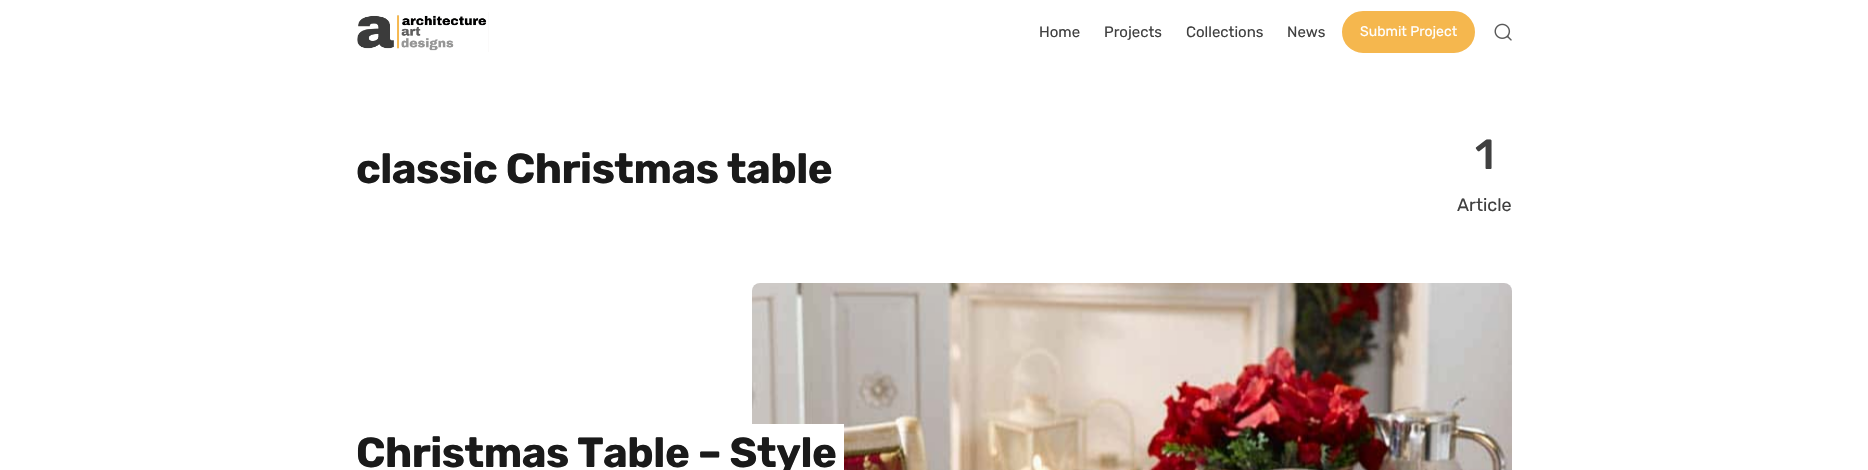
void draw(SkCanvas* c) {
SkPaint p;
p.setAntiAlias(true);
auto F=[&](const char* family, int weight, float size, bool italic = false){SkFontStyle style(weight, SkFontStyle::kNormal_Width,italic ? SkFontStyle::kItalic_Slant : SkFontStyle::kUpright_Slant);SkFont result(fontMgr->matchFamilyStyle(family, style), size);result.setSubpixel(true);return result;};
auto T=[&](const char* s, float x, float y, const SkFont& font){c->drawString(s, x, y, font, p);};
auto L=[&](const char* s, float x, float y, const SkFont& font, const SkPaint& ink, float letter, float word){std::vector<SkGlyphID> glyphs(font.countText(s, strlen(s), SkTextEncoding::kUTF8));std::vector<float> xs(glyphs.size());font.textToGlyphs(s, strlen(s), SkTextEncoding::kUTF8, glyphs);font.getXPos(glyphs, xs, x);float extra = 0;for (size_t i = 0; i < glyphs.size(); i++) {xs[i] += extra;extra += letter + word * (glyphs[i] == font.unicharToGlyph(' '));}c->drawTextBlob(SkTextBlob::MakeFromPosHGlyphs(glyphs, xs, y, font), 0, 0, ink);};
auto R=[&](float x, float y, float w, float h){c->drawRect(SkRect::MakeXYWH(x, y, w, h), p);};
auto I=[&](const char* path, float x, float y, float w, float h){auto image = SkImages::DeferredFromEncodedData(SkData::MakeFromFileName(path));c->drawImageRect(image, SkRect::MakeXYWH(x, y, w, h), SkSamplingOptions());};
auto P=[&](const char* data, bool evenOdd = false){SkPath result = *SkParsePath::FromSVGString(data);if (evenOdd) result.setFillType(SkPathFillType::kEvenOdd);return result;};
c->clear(0xffffffff);
I("1.png",357,12,132,40);
auto f1 = F("Rubik",400,15);
p.setColor(0xff404040);
T("Home",1039,37,f1);
T("Projects",1104,37,f1);
T("Collections",1186,37,f1);
T("News",1287,37,f1);
p.setColor(0xfff5b74e);
c->drawRoundRect(SkRect::MakeXYWH(1343,12,131,40),20,20,p);
p.setStroke(true);
p.setStrokeWidth(2);
c->drawRoundRect(SkRect::MakeXYWH(1343,12,131,40),20,20,p);
auto f2 = F("Rubik",400,14);
p.setStroke(false);
p.setColor(0xffffffff);
T("Submit Project",1360,36,f2);
I("2.png",1494,23,18,18);
auto f3 = F("Rubik",700,42);
p.setColor(0xff1a1a1a);
L("classic Christmas table",356,183,f3,p,-.5,0);
auto f4 = F("Rubik",500,42);
p.setColor(0xff404040);
T("1",1475,169,f4);
auto f5 = F("Rubik",400,18);
T("Article",1457,211,f5);
I("3.png",752,283,760,187);
p.setColor(0xffffffff);
c->drawPath(P("M364 424v4h472v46h8v-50z"),p);
R(752,428,84,42);
p.setColor(0xff1a1a1a);
L("Christmas Table – Style",356,467,f3,p,-.5,0);
}
